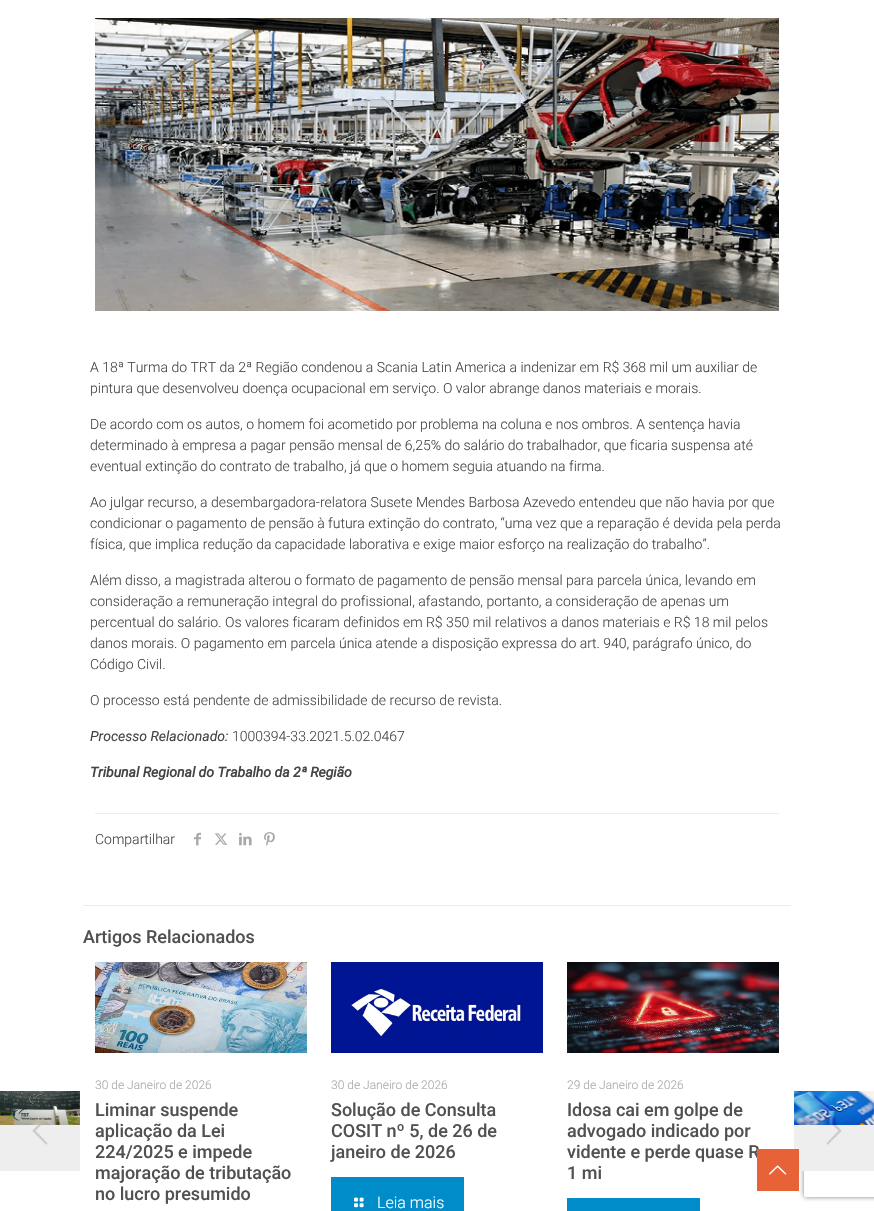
void draw(SkCanvas* c) {
SkPaint p;
p.setAntiAlias(true);
auto F=[&](const char* family, int weight, float size, bool italic = false){SkFontStyle style(weight, SkFontStyle::kNormal_Width,italic ? SkFontStyle::kItalic_Slant : SkFontStyle::kUpright_Slant);SkFont result(fontMgr->matchFamilyStyle(family, style), size);result.setSubpixel(true);return result;};
auto T=[&](const char* s, float x, float y, const SkFont& font){c->drawString(s, x, y, font, p);};
auto R=[&](float x, float y, float w, float h){c->drawRect(SkRect::MakeXYWH(x, y, w, h), p);};
auto I=[&](const char* path, float x, float y, float w, float h){auto image = SkImages::DeferredFromEncodedData(SkData::MakeFromFileName(path));c->drawImageRect(image, SkRect::MakeXYWH(x, y, w, h), SkSamplingOptions());};
auto P=[&](const char* data, bool evenOdd = false){SkPath result = *SkParsePath::FromSVGString(data);if (evenOdd) result.setFillType(SkPathFillType::kEvenOdd);return result;};
c->clear(0xffffffff);
p.setColor(0xffeeeeee);
R(0,1091,80,80);
I("1.png",0,1091,80,34);
I("2.png",32,1125,16,20);
I("3.png",95,18,684,293);
auto f1 = F("Roboto",300,14);
p.setColor(0xff444444);
T("A 18ª Turma do TRT da 2ª Região condenou a Scania Latin America a indenizar em R$ 368 mil um auxiliar de",90,372,f1);
T("pintura que desenvolveu doença ocupacional em serviço. O valor abrange danos materiais e morais.",90,393,f1);
T("De acordo com os autos, o homem foi acometido por problema na coluna e nos ombros. A sentença havia",90,429,f1);
T("determinado à empresa a pagar pensão mensal de 6,25% do salário do trabalhador, que ficaria suspensa até",90,450,f1);
T("eventual extinção do contrato de trabalho, já que o homem seguia atuando na firma.",90,471,f1);
T("Ao julgar recurso, a desembargadora-relatora Susete Mendes Barbosa Azevedo entendeu que não havia por que",90,507,f1);
T("condicionar o pagamento de pensão à futura extinção do contrato, “uma vez que a reparação é devida pela perda",90,528,f1);
T("física, que implica redução da capacidade laborativa e exige maior esforço na realização do trabalho”.",90,549,f1);
T("Além disso, a magistrada alterou o formato de pagamento de pensão mensal para parcela única, levando em",90,585,f1);
T("consideração a remuneração integral do profissional, afastando, portanto, a consideração de apenas um",90,606,f1);
T("percentual do salário. Os valores ficaram definidos em R$ 350 mil relativos a danos materiais e R$ 18 mil pelos",90,627,f1);
T("danos morais. O pagamento em parcela única atende a disposição expressa do art. 940, parágrafo único, do",90,648,f1);
T("Código Civil.",90,669,f1);
T("O processo está pendente de admissibilidade de recurso de revista.",90,705,f1);
auto f2 = F("Roboto",400,14,true);
T("Processo Relacionado:",90,741,f2);
T("1000394-33.2021.5.02.0467",232,741,f1);
auto f3 = F("Roboto",700,14,true);
T("Tribunal Regional do Trabalho da 2ª Região",90,777,f3);
p.setColor(0xffebebeb);
R(95,813,684,1);
p.setColor(0xff444444);
T("Compartilhar",95,844,f1);
I("4.png",194,832,7,14);
I("5.png",214,833,14,12);
I("6.png",239,832,13,14);
I("7.png",264,832,11,14);
p.setColor(0xffebebeb);
R(83,905,708,1);
auto f4 = F("Roboto",500,18);
p.setColor(0xff515151);
T("Artigos Relacionados",83,943,f4);
I("8.png",95,962,212,91);
auto f5 = F("Roboto",300,12);
p.setColor(0xffa8a8a8);
T("30 de Janeiro de 2026",95,1089,f5);
p.setColor(0xff515151);
T("Liminar suspende",95,1116,f4);
T("aplicação da Lei",95,1137,f4);
T("224/2025 e impede",95,1158,f4);
T("majoração de tributação",95,1179,f4);
T("no lucro presumido",95,1200,f4);
I("9.png",331,962,212,91);
p.setColor(0xffa8a8a8);
T("30 de Janeiro de 2026",331,1089,f5);
p.setColor(0xff515151);
T("Solução de Consulta",331,1116,f4);
T("COSIT nº 5, de 26 de",331,1137,f4);
T("janeiro de 2026",331,1158,f4);
p.setColor(0xff008cc8);
R(331,1177,133,34);
I("10.png",354,1197,10,11);
auto f6 = F("Roboto",300,16);
p.setColor(0xffffffff);
T("Leia mais",377,1208,f6);
I("11.png",567,962,212,91);
p.setColor(0xffa8a8a8);
T("29 de Janeiro de 2026",567,1089,f5);
p.setColor(0xff515151);
T("Idosa cai em golpe de",567,1116,f4);
T("advogado indicado por",567,1137,f4);
T("vidente e perde quase R",567,1158,f4);
T("1 mi",567,1179,f4);
p.setColor(0xff008cc8);
R(567,1198,133,13);
c->save();
c->clipPath(P("M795 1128h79v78h-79zm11 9h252c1 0 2 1 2 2v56c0 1-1 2-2 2h-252c-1 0-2-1-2-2v-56c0-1 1-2 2-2z",true),true);
p.setColor(0xff808080);
p.setMaskFilter(SkMaskFilter::MakeBlur(kNormal_SkBlurStyle, 2.5));
c->drawRoundRect(SkRect::MakeXYWH(804,1137,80,60),2,2,p);
p.setMaskFilter(nullptr);
c->restore();
p.setColor(0xffeeeeee);
R(794,1091,80,80);
I("12.png",794,1091,80,34);
I("13.png",826,1125,16,20);
p.setColor(0xffe86237);
R(757,1149,42,42);
I("14.png",769,1165,18,10);
}
